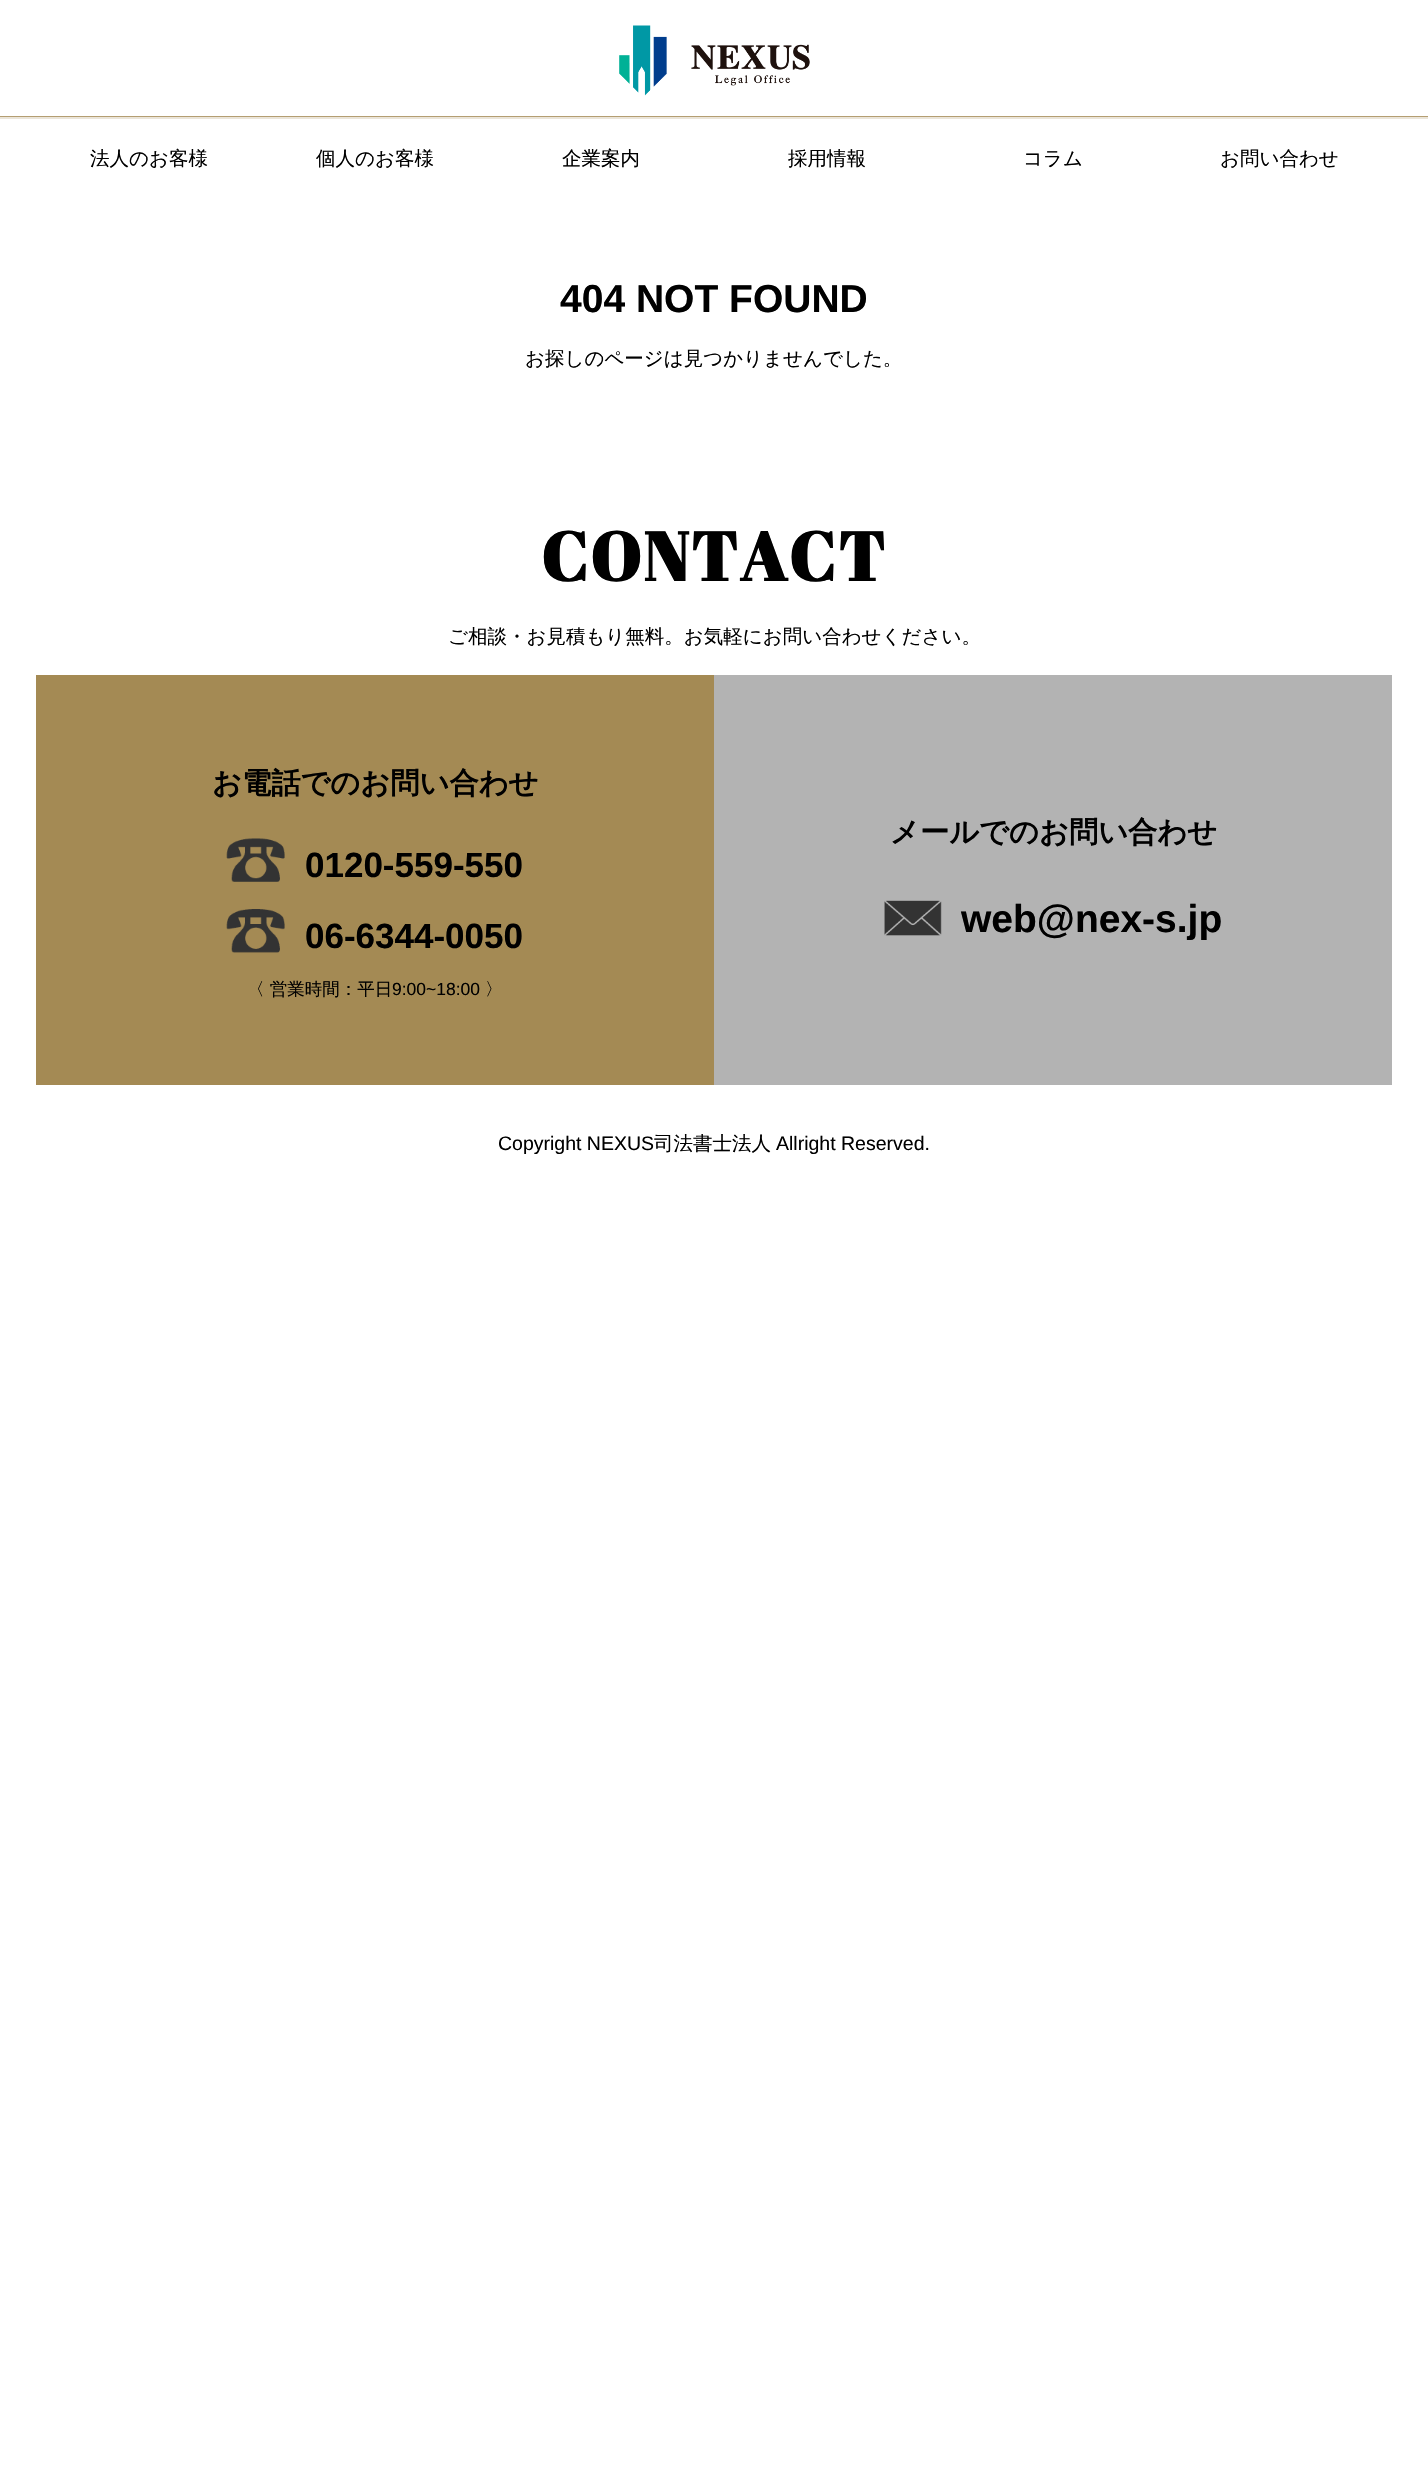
void draw(SkCanvas* c) {
SkPaint p;
p.setAntiAlias(true);
auto F=[&](const char* family, int weight, float size, bool italic = false){SkFontStyle style(weight, SkFontStyle::kNormal_Width,italic ? SkFontStyle::kItalic_Slant : SkFontStyle::kUpright_Slant);SkFont result(fontMgr->matchFamilyStyle(family, style), size);result.setSubpixel(true);return result;};
auto T=[&](const char* s, float x, float y, const SkFont& font){c->drawString(s, x, y, font, p);};
auto L=[&](const char* s, float x, float y, const SkFont& font, const SkPaint& ink, float letter, float word){std::vector<SkGlyphID> glyphs(font.countText(s, strlen(s), SkTextEncoding::kUTF8));std::vector<float> xs(glyphs.size());font.textToGlyphs(s, strlen(s), SkTextEncoding::kUTF8, glyphs);font.getXPos(glyphs, xs, x);float extra = 0;for (size_t i = 0; i < glyphs.size(); i++) {xs[i] += extra;extra += letter + word * (glyphs[i] == font.unicharToGlyph(' '));}c->drawTextBlob(SkTextBlob::MakeFromPosHGlyphs(glyphs, xs, y, font), 0, 0, ink);};
auto R=[&](float x, float y, float w, float h){c->drawRect(SkRect::MakeXYWH(x, y, w, h), p);};
auto I=[&](const char* path, float x, float y, float w, float h){auto image = SkImages::DeferredFromEncodedData(SkData::MakeFromFileName(path));c->drawImageRect(image, SkRect::MakeXYWH(x, y, w, h), SkSamplingOptions());};
c->clear(0xffffffff);
I("1.png",619,25,191,71);
p.setColor(0xffb49e72);
R(0,116,1428,1);
p.setColor(0xffebe5d9);
R(0,117,1428,2);
auto f1 = F("WenQuanYi Zen Hei",500,19.5);
p.setColor(0xff000000);
T("法人のお客様",90,165,f1);
T("個人のお客様",316,165,f1);
T("企業案内",562,165,f1);
T("採用情報",788,165,f1);
T("コラム",1023,165,f1);
T("お問い合わせ",1220,165,f1);
auto f2 = F("Liberation Sans",700,39);
T("404 NOT FOUND",560,312,f2);
T("お探しのページは見つかりませんでした。",525,365,f1);
auto f3 = F("Abril Fatface",700,68.25);
L("CONTACT",541,581,f3,p,2,0);
T("ご相談・お見積もり無料。お気軽にお問い合わせください。",448,643,f1);
p.setColor(0xffa48a54);
R(36,675,678,410);
auto f4 = F("WenQuanYi Zen Hei",700,29.25);
p.setColor(0xff000000);
T("お電話でのお問い合わせ",212,793,f4);
I("2.png",226,838,59,44);
auto f5 = F("Liberation Sans",700,35);
T("0120-559-550",305,877,f5);
I("3.png",226,909,59,44);
T("06-6344-0050",305,948,f5);
auto f6 = F("WenQuanYi Zen Hei",500,17.5);
T("〈 営業時間：平日",247,995,f6);
auto f7 = F("Liberation Sans",400,17.5);
T("9:00~18:00",392,995,f7);
T("〉",485,995,f6);
p.setColor(0xffb3b3b3);
R(714,675,678,410);
p.setColor(0xff000000);
T("メールでのお問い合わせ",890,842,f4);
I("4.png",884,900,58,36);
T("web@nex-s.jp",961,932,f2);
auto f8 = F("Liberation Sans",400,19.5);
T("Copyright NEXUS",498,1150,f8);
T("司法書士法人",654,1150,f1);
T("Allright Reserved.",776,1150,f8);
}
